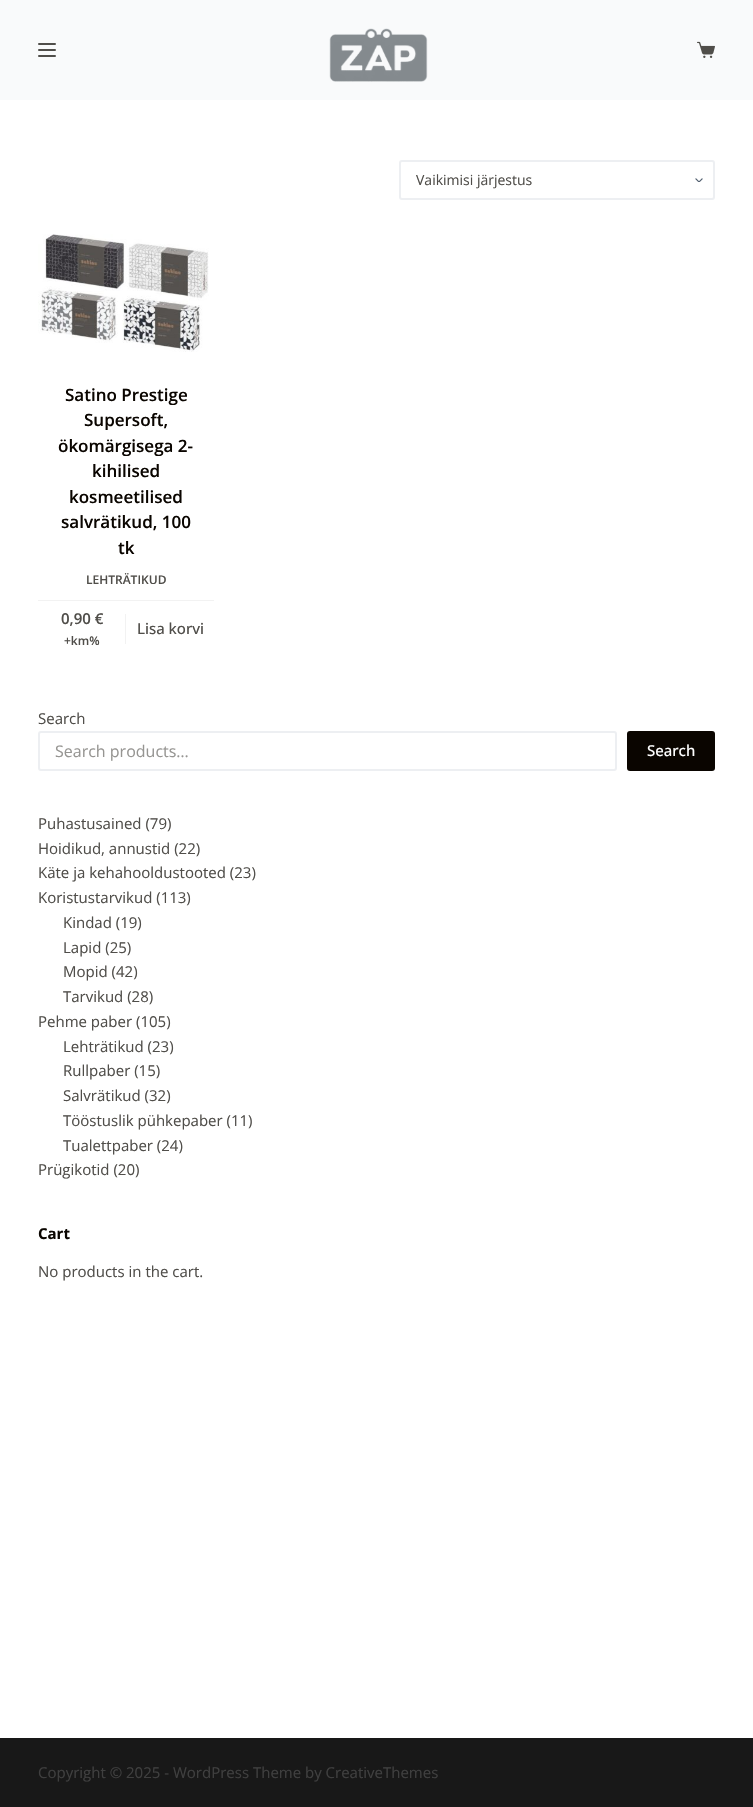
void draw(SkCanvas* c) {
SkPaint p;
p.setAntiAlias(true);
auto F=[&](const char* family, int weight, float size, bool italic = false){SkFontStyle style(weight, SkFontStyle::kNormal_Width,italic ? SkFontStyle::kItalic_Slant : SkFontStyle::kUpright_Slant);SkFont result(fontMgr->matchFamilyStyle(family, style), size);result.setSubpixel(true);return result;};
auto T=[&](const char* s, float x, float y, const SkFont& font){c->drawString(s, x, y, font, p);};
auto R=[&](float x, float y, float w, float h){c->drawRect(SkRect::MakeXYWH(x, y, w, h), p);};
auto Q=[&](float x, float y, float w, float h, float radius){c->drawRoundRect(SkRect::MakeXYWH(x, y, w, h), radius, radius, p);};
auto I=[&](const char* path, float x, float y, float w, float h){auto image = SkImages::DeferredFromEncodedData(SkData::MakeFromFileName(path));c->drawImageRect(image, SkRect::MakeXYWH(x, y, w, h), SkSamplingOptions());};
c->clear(0xffffffff);
p.setColor(0xfff9fafb);
R(0,0,753,100);
p.setColor(0xff504e4a);
Q(38,43,18,2,1);
Q(38,49,18,2,1);
Q(38,55,18,2,1);
I("1.png",329,28,99,54);
I("2.png",697,41,18,17);
I("3.png",695,178,8,4);
p.setStroke(true);
p.setStrokeWidth(2);
p.setColor(0xffedeff2);
c->drawRoundRect(SkRect::MakeXYWH(400,161,314,38),2,2,p);
auto f1 = F("Open Sans",400,14);
p.setStroke(false);
p.setColor(0xff504e4a);
T("Vaikimisi järjestus",416,185,f1);
I("4.png",38,234,171,118);
auto f2 = F("Open Sans",600,17);
p.setColor(0xff0a0500);
T("Satino Prestige",65,401,f2);
T("Supersoft,",84,426,f2);
T("ökomärgisega 2-",58,452,f2);
T("kihilised",92,477,f2);
T("kosmeetilised",69,503,f2);
T("salvrätikud, 100",61,528,f2);
T("tk",118,554,f2);
auto f3 = F("Open Sans",600,12);
p.setColor(0xff504e4a);
T("LEHTRÄTIKUD",86,584,f3);
p.setColor(0xfff2f2f2);
R(38,600,176,1);
auto f4 = F("Open Sans",600,15);
p.setColor(0xff504e4a);
T("0,90 €",61,624,f4);
p.setColor(0xfff2f2f2);
R(125,614,1,30);
p.setColor(0xff504e4a);
T("+km%",64,645,f3);
auto f5 = F("Open Sans",500,15);
T("Lisa korvi",137,634,f5);
auto f6 = F("Open Sans",400,15);
T("Search",38,724,f6);
p.setStroke(true);
p.setColor(0xffedeff2);
c->drawRoundRect(SkRect::MakeXYWH(39,732,577,38),2,2,p);
auto f7 = F("Open Sans",400,16);
p.setStroke(false);
p.setColor(0xff969592);
T("Search products…",55,757,f7);
p.setColor(0xff0a0500);
Q(627,731,88,40,3);
p.setColor(0xffffffff);
T("Search",647,756,f5);
p.setColor(0xff504e4a);
T("Puhastusained (79)",38,829,f6);
T("Hoidikud, annustid (22)",38,854,f6);
T("Käte ja kehahooldustooted (23)",38,878,f6);
T("Koristustarvikud (113)",38,903,f6);
T("Kindad (19)",63,928,f6);
T("Lapid (25)",63,953,f6);
T("Mopid (42)",63,977,f6);
T("Tarvikud (28)",63,1002,f6);
T("Pehme paber (105)",38,1027,f6);
T("Lehträtikud (23)",63,1052,f6);
T("Rullpaber (15)",63,1076,f6);
T("Salvrätikud (32)",63,1101,f6);
T("Tööstuslik pühkepaber (11)",63,1126,f6);
T("Tualettpaber (24)",63,1151,f6);
T("Prügikotid (20)",38,1175,f6);
auto f8 = F("Open Sans",700,15);
p.setColor(0xff0a0500);
T("Cart",38,1239,f8);
p.setColor(0xff504e4a);
T("No products in the cart.",38,1277,f6);
p.setColor(0xff181818);
R(0,1738,753,69);
p.setColor(0xff3f3f3f);
T("Copyright © 2025 - WordPress Theme by CreativeThemes",38,1778,f6);
}
